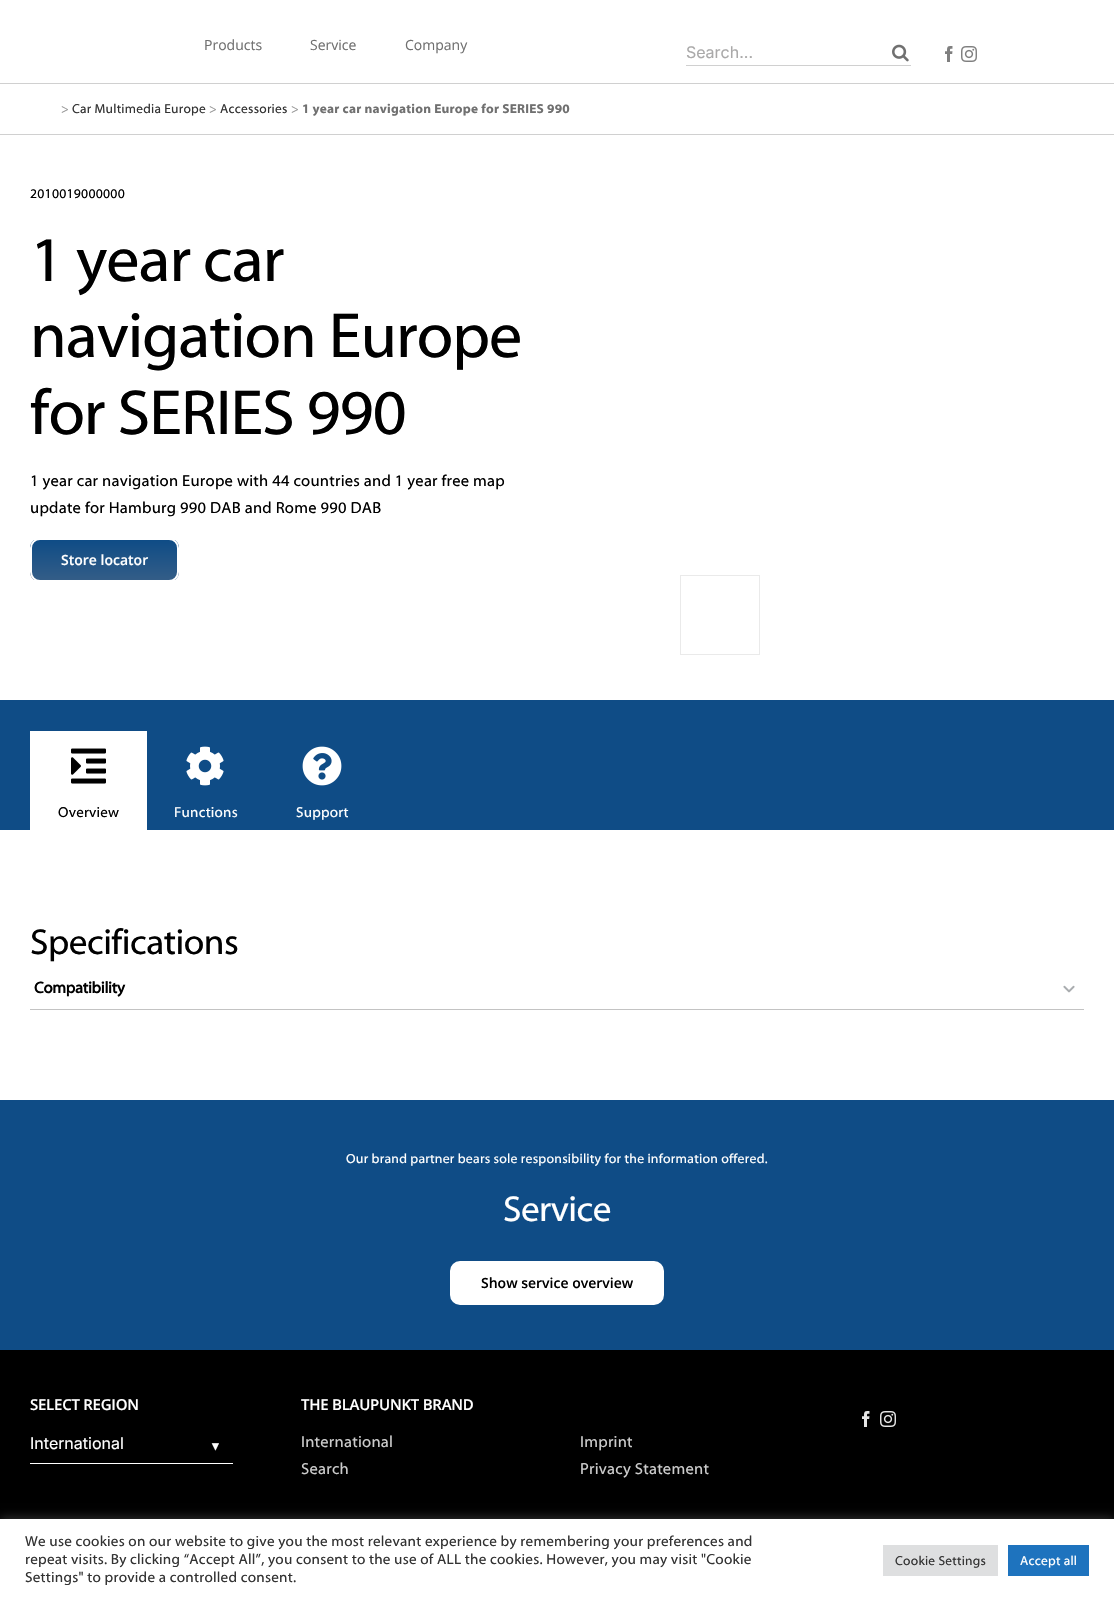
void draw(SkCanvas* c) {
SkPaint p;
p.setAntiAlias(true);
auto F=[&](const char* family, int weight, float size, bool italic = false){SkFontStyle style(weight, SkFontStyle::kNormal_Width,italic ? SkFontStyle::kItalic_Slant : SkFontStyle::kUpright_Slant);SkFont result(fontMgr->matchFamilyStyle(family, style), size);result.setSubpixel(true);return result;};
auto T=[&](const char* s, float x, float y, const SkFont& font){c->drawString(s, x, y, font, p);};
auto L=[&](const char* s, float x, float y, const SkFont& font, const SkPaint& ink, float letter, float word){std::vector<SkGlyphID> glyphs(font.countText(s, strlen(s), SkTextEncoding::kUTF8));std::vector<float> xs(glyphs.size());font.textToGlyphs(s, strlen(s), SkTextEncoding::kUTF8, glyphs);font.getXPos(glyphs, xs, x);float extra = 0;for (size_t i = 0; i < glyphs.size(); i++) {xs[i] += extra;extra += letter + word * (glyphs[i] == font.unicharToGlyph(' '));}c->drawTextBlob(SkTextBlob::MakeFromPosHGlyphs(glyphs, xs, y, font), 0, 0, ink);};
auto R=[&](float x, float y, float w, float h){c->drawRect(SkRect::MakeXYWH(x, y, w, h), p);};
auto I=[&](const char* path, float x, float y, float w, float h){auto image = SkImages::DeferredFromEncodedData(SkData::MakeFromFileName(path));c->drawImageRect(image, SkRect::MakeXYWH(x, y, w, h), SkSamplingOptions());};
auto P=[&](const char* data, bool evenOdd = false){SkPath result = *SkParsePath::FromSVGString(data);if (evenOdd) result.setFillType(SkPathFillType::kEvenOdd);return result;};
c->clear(0xffffffff);
auto f1 = F("Open Sans",400,14);
p.setColor(0xff707070);
T("Products",204,50,f1);
T("Service",310,50,f1);
T("Company",405,50,f1);
auto f2 = F("Inter",400,16);
p.setColor(0xffaaa9a9);
T("Search...",686,58,f2);
p.setColor(0xffd0d0d0);
R(686,65,225,1);
I("1.png",892,44,17,18);
I("2.png",945,46,8,16);
I("3.png",961,46,16,16);
R(0,83,1114,1);
R(0,134,1114,1);
auto f3 = F("Myriad",400,13);
p.setColor(0xff969696);
L(">",61,113,f3,p,.24,0);
p.setColor(0xff333333);
L("Car Multimedia Europe",72,113,f3,p,.24,0);
p.setColor(0xff969696);
L(">",209,113,f3,p,.24,0);
p.setColor(0xff333333);
L("Accessories",220,113,f3,p,.24,0);
p.setColor(0xff969696);
L(">",291,113,f3,p,.24,0);
auto f4 = F("Myriad",700,13);
p.setColor(0xff707070);
L("1 year car navigation Europe for SERIES 990",302,113,f4,p,.24,0);
auto f5 = F("Myriad",400,13.3);
p.setColor(0xff000000);
L("2010019000000",30,198,f5,p,.24,0);
auto f6 = F("Myriad",400,64);
L("1 year car",30,281,f6,p,-1,0);
L("navigation Europe",30,357,f6,p,-1,0);
L("for SERIES 990",30,434,f6,p,-1,0);
auto f7 = F("Myriad",400,16);
L("1 year car navigation Europe with 44 countries and 1 year free map",30,486,f7,p,.24,0);
L("update for Hamburg 990 DAB and Rome 990 DAB",30,513,f7,p,.24,0);
c->save();
c->clipPath(P("M40 538h129c5.5 0 10 4.5 10 10v24c0 5.5-4.5 10-10 10h-129c-5.5 0-10-4.5-10-10v-24c0-5.5 4.5-10 10-10z"),true);
{
const SkColor colors[] = {0xff0f4c86,0xff335d87};
const float stops[] = {0,1};
const SkPoint ends[] = {{105,540}, {105,580}};
p.setShader(SkGradientShader::MakeLinear(ends, colors, stops, 2, SkTileMode::kClamp));
p.setAlpha(255);
}
R(30,540,149,40);
c->restore();
p.setStroke(true);
p.setStrokeWidth(2);
p.setShader(nullptr);
p.setColor(0xffffffff);
c->drawRoundRect(SkRect::MakeXYWH(31,539,147,42),9,9,p);
auto f8 = F("Open Sans",600,14);
p.setStroke(false);
T("Store locator",61,565,f8);
p.setStroke(true);
p.setStrokeWidth(1);
p.setColor(0xffeaeaea);
c->drawRect(SkRect::MakeXYWH(680.5,575.5,79,79),p);
p.setStroke(false);
p.setColor(0xff0f4c86);
R(0,700,1114,130);
p.setColor(0xffffffff);
R(30,731,117,99);
I("4.png",71,748,35,36);
auto f9 = F("Myriad",400,14.5);
p.setColor(0xff000000);
L("Overview",58,817,f9,p,.24,0);
I("5.png",186,746,38,40);
p.setColor(0xffffffff);
L("Functions",174,817,f9,p,.24,0);
I("6.png",302,746,40,40);
L("Support",296,817,f9,p,.24,0);
auto f10 = F("Myriad",400,36);
p.setColor(0xff000000);
L("Specifications",30,954,f10,p,-.5,0);
auto f11 = F("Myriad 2",700,16);
L("Compatibility",34,993,f11,p,-.25,0);
I("7.png",1063,985,12,8);
p.setColor(0xffc3c3c3);
R(30,1009,1054,1);
p.setColor(0xff0f4c86);
R(0,1100,1114,250);
p.setColor(0xffffffff);
L("Our brand partner bears sole responsibility for the information offered.",346,1163,f5,p,.24,0);
L("Service",503,1221,f10,p,-.5,0);
c->drawRoundRect(SkRect::MakeXYWH(451,1262,212,42),9,9,p);
p.setStroke(true);
p.setStrokeWidth(2);
c->drawRoundRect(SkRect::MakeXYWH(451,1262,212,42),9,9,p);
p.setStroke(false);
p.setColor(0xff000000);
T("Show service overview",481,1288,f8);
R(0,1350,1114,169);
auto f12 = F("Open Sans",600,15);
p.setColor(0xffffffff);
L("SELECT REGION",30,1410,f12,p,-.25,0);
R(30,1463,203,1);
T("International",30,1449,f2);
auto f13 = F("Liberation Sans",400,12);
c->save();
c->rotate(90,212,1441);
L("►",212,1441,f13,p,.24,0);
c->restore();
L("THE BLAUPUNKT BRAND",301,1410,f12,p,-.25,0);
p.setColor(0xffcccccc);
L("International",301,1447,f7,p,.24,0);
L("Search",301,1474,f7,p,.24,0);
I("8.png",862,1411,8,16);
I("9.png",880,1411,16,16);
L("Imprint",580,1447,f7,p,.24,0);
L("Privacy Statement",580,1474,f7,p,.24,0);
p.setColor(0x4dacabab);
p.setMaskFilter(SkMaskFilter::MakeBlur(kNormal_SkBlurStyle, 5));
c->drawRect(SkRect::MakeXYWH(0,1518,1114,82),p);
p.setMaskFilter(nullptr);
p.setColor(0xffffffff);
R(0,1519,1114,82);
auto f14 = F("Myriad",400,14.65);
p.setColor(0xff333333);
L("We use cookies on our website to give you the most relevant experience by remembering your preferences and",25,1546,f14,p,.24,0);
L("repeat visits. By clicking “Accept All”, you consent to the use of ALL the cookies. However, you may visit \"Cookie",25,1564,f14,p,.24,0);
L("Settings\" to provide a controlled consent.",25,1582,f14,p,.24,0);
p.setColor(0xffdedfe0);
R(883,1545,115,31);
p.setColor(0xff333333);
L("Cookie Settings",895,1565,f3,p,.24,0);
p.setColor(0xff1e73be);
R(1008,1545,81,31);
p.setColor(0xffffffff);
L("Accept all",1020,1565,f3,p,.24,0);
}
